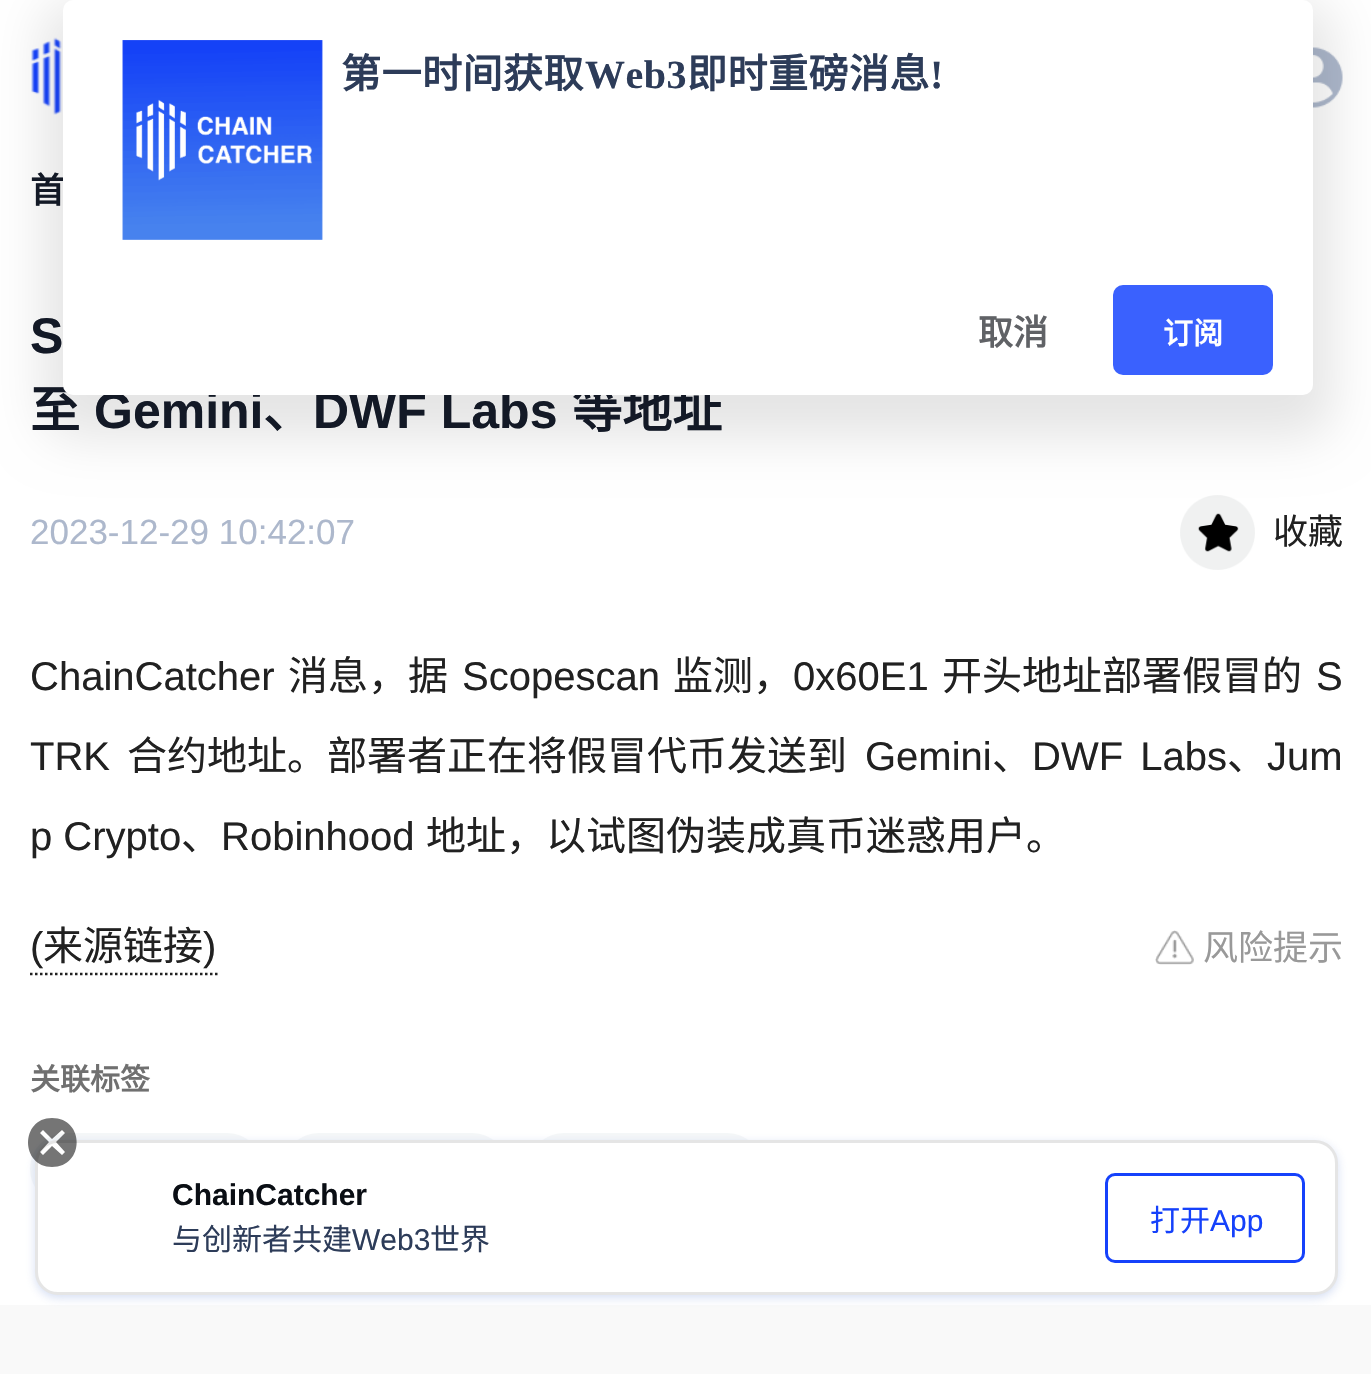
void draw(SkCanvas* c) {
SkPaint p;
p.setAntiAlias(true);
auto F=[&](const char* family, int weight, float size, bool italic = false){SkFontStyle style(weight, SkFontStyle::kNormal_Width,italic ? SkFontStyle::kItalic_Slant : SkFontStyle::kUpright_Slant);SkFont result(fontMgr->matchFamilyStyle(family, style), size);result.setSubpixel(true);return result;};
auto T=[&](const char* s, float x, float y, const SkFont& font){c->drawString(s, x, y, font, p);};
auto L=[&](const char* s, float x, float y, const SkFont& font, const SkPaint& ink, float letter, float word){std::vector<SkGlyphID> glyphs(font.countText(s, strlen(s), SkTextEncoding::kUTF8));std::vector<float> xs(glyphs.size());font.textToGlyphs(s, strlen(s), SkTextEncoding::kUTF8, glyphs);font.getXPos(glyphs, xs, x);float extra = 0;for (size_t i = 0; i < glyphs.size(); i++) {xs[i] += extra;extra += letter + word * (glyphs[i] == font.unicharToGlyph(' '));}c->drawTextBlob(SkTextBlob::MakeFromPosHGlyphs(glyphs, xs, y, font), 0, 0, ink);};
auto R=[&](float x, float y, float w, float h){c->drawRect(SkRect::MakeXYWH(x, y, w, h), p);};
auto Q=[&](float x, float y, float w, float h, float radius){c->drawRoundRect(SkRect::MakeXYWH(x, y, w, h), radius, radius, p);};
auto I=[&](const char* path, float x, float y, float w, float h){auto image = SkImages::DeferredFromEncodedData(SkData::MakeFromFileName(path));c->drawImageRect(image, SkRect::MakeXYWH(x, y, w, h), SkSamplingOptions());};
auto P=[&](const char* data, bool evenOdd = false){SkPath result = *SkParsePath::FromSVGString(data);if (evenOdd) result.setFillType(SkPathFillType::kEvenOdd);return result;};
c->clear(0xffffffff);
I("2.png",31,37,31,78);
I("3.png",1313,47,30,61);
I("4.png",1180,495,75,75);
p.setColor(0x1a000000);
p.setMaskFilter(SkMaskFilter::MakeBlur(kNormal_SkBlurStyle, 25));
c->drawRoundRect(SkRect::MakeXYWH(43,3,1290,435),30,30,p);
p.setMaskFilter(nullptr);
auto f1 = F("Noto Sans CJK SC",700,35);
p.setColor(0xff131926);
T("首",30,203,f1);
auto f2 = F("Noto Sans CJK SC",700,50);
T("至",30,428,f2);
auto f3 = F("Liberation Sans",700,50);
T("Gemini",94,428,f3);
T("DWF Labs",313,428,f3);
T("等地址",572,428,f2);
p.setColor(0xffffffff);
Q(63,0,1250,395,10);
I("1.png",122,40,201,200);
auto f4 = F("Noto Sans CJK SC",700,40);
p.setColor(0xff2d3c59);
L("第一时间获取",341,88,f4,p,.5,0);
auto f5 = F("Liberation Serif",700,40);
L("Web3",585,88,f5,p,.5,0);
L("即时重磅消息",687,88,f4,p,.5,0);
L("!",930,88,f5,p,.5,0);
p.setColor(0xff606266);
T("取消",978,345,f1);
p.setColor(0xff3a61fe);
Q(1113,285,160,90,10);
auto f6 = F("Noto Sans CJK SC",700,30);
p.setColor(0xffffffff);
T("订阅",1163,344,f6);
p.setColor(0xff131926);
T("S",30,353,f3);
T("、",263,428,f2);
auto f7 = F("Liberation Sans",400,35);
p.setColor(0xffadb8cc);
T("2023-12-29 10:42:07",30,544,f7);
auto f8 = F("Noto Sans CJK SC",400,35);
p.setColor(0xff212121);
T("收藏",1273,544,f8);
auto f9 = F("Liberation Sans",400,40);
T("ChainCatcher",30,690,f9);
auto f10 = F("Noto Sans CJK SC",400,40);
T("消息，据",288,690,f10);
T("Scopescan",462,690,f9);
T("监测，",673,690,f10);
T("0x60E1",793,690,f9);
T("开头地址部署假冒的",942,690,f10);
T("S",1316,690,f9);
T("TRK",30,770,f9);
T("合约地址。部署者正在将假冒代币发送到",127,770,f10);
T("Gemini",865,770,f9);
T("、",992,770,f10);
L("DWF Labs",1032,770,f9,p,0,6);
T("、",1227,770,f10);
T("Jum",1267,770,f9);
T("p Crypto",30,850,f9);
T("、",181,850,f10);
T("Robinhood",221,850,f9);
T("地址，以试图伪装成真币迷惑用户。",426,850,f10);
T("(",30,960,f9);
p.setStroke(true);
p.setStrokeWidth(2.5);
p.setPathEffect(SkDashPathEffect::Make({{2.5f,2.5f}}, 0));
c->drawPath(P("M30 974h187.5"),p);
p.setPathEffect(nullptr);
p.setStroke(false);
T("来源链接",43,960,f10);
T(")",203,960,f9);
I("5.png",1155,930,39,35);
p.setColor(0xff999999);
T("风险提示",1203,960,f8);
p.setColor(0xff707070);
T("关联标签",30,1090,f6);
p.setColor(0xfff5f7f8);
Q(30,1133,233,72,36);
Q(283,1133,225,72,36);
Q(528,1133,235,72,36);
p.setColor(0xfff9f9f9);
R(0,1305,1371,69);
p.setColor(0x78a7bce5);
p.setMaskFilter(SkMaskFilter::MakeBlur(kNormal_SkBlurStyle, 5));
c->drawRoundRect(SkRect::MakeXYWH(35,1143,1303,155),23,23,p);
p.setMaskFilter(nullptr);
p.setColor(0xffffffff);
c->drawRoundRect(SkRect::MakeXYWH(36.5,1141.5,1300,152),21.5,21.5,p);
p.setStroke(true);
p.setStrokeWidth(3);
p.setColor(0xffe5e5e5);
c->drawRoundRect(SkRect::MakeXYWH(36.5,1141.5,1300,152),21.5,21.5,p);
p.setStroke(false);
p.setColor(0x8a000000);
c->drawPath(P("M52 1118c33 0 33 49 0 49c-32 0-32-49 0-49zm10 12l-10 9l-9-9l-3 3l9 9l-9 10l3 3l9-9l10 9l3-3l-9-10l9-9z"),p);
auto f11 = F("Liberation Sans",700,30);
p.setColor(0xff0a0e14);
T("ChainCatcher",172,1205,f11);
auto f12 = F("Noto Sans CJK SC",400,30);
p.setColor(0xff2d3c59);
T("与创新者共建",172,1250,f12);
auto f13 = F("Liberation Sans",400,30);
T("Web3",352,1250,f13);
T("世界",430,1250,f12);
p.setStroke(true);
p.setColor(0xff1541fb);
c->drawRoundRect(SkRect::MakeXYWH(1106.5,1174.5,197,87),8.5,8.5,p);
p.setStroke(false);
T("打开",1150,1231,f12);
T("App",1210,1231,f13);
}
